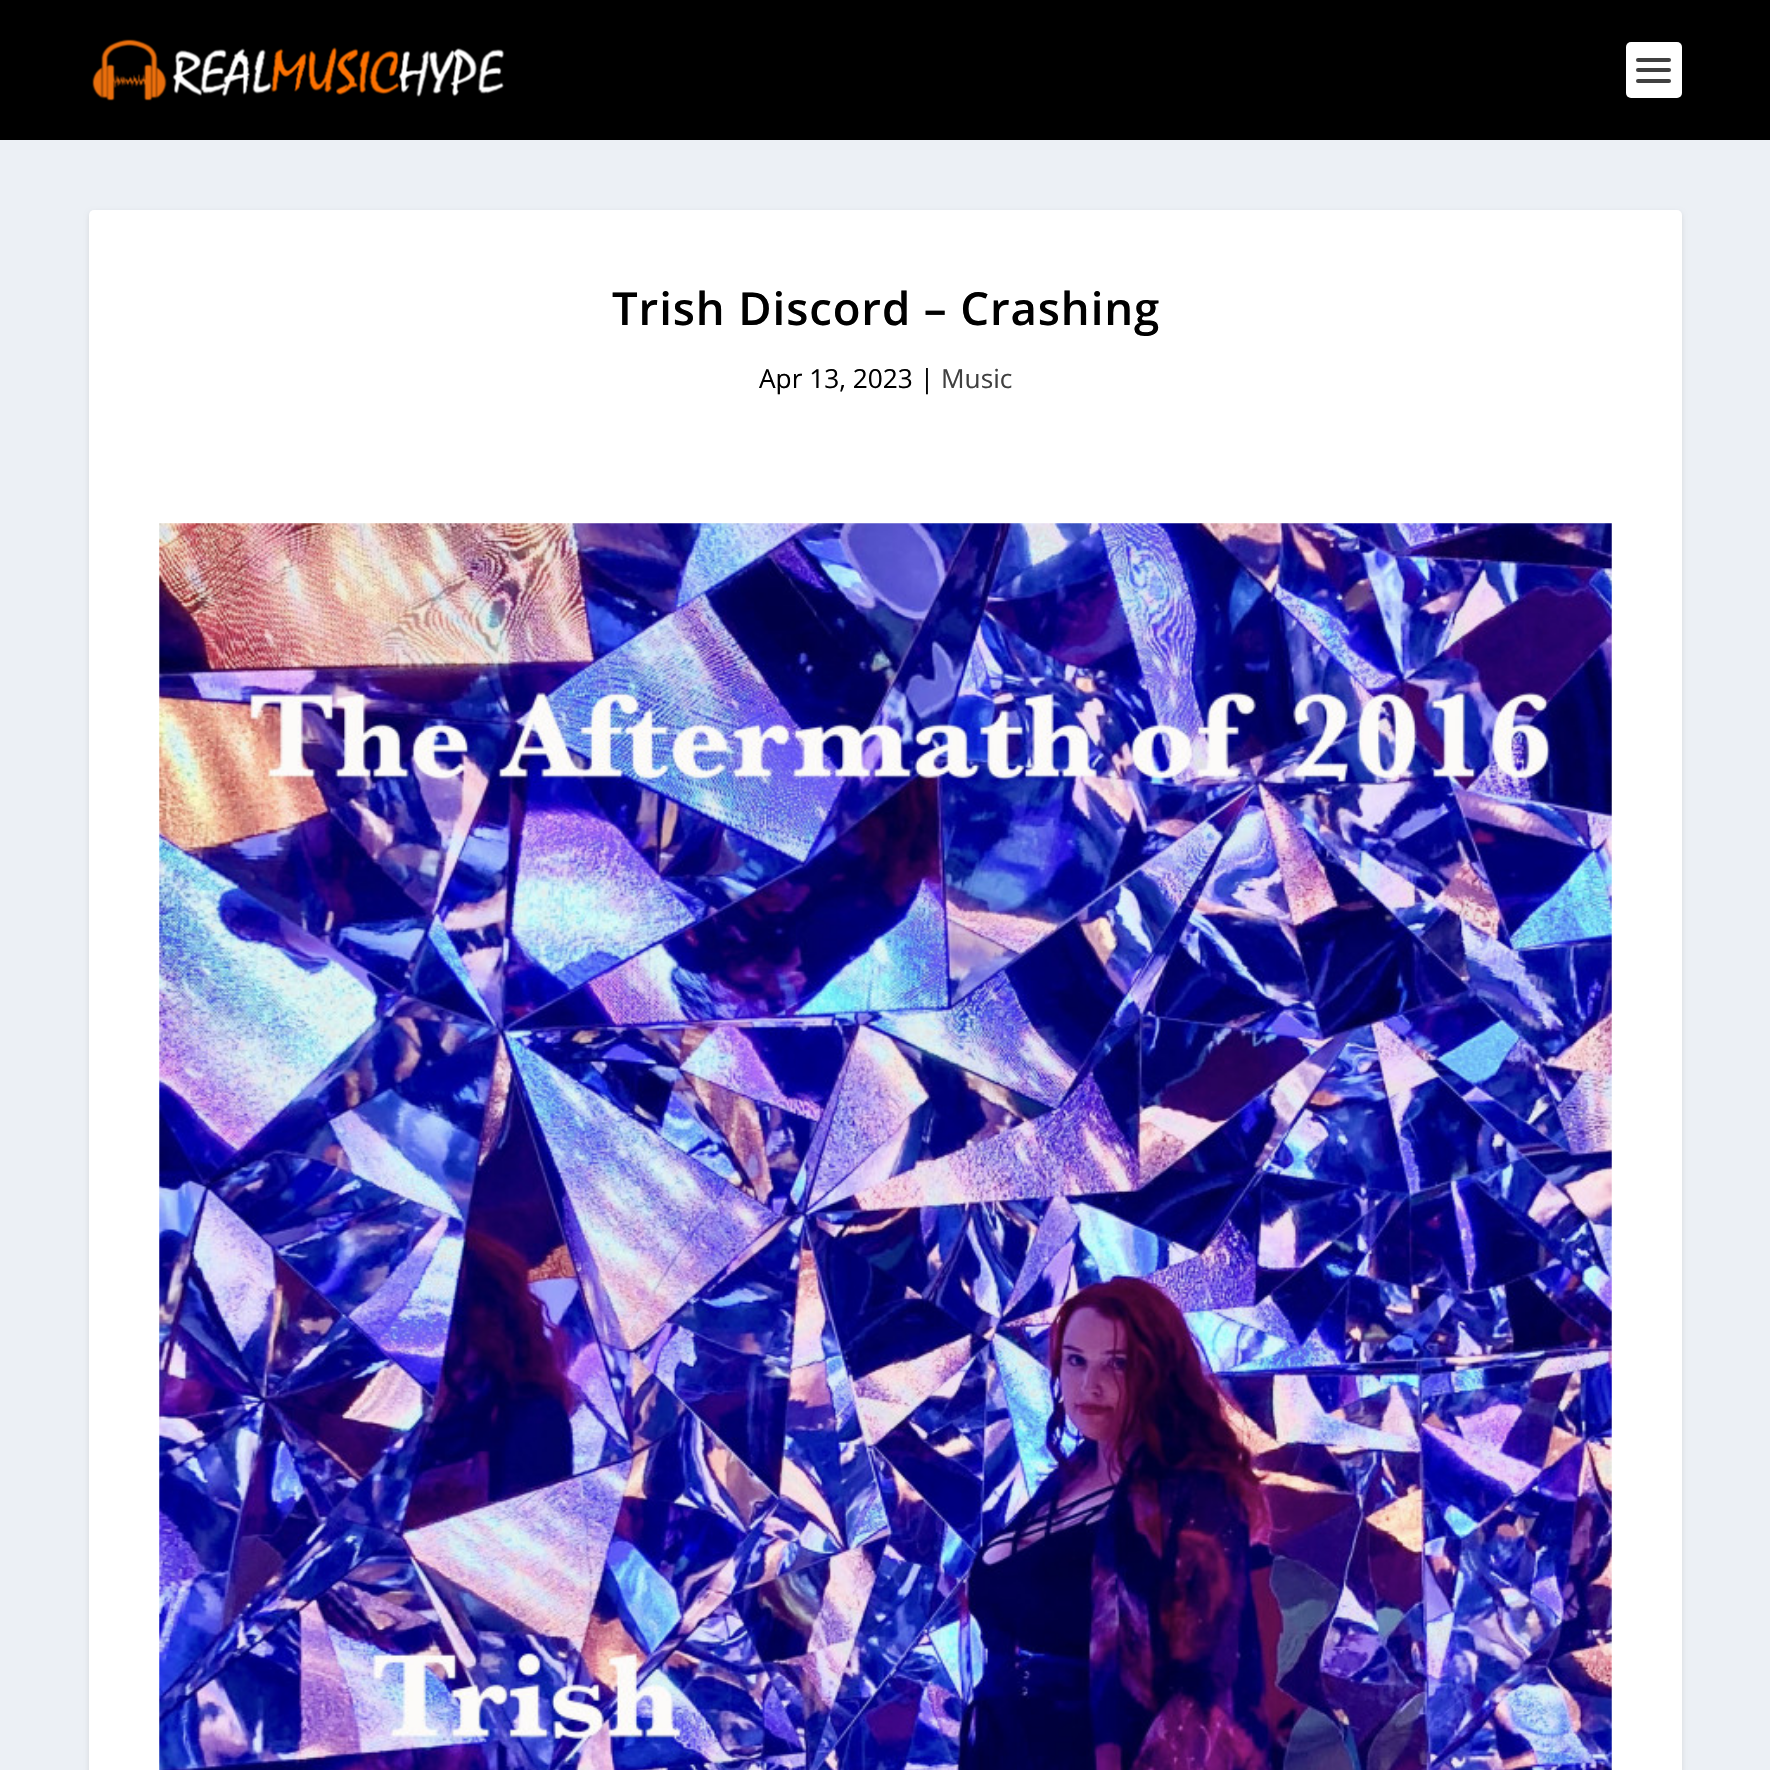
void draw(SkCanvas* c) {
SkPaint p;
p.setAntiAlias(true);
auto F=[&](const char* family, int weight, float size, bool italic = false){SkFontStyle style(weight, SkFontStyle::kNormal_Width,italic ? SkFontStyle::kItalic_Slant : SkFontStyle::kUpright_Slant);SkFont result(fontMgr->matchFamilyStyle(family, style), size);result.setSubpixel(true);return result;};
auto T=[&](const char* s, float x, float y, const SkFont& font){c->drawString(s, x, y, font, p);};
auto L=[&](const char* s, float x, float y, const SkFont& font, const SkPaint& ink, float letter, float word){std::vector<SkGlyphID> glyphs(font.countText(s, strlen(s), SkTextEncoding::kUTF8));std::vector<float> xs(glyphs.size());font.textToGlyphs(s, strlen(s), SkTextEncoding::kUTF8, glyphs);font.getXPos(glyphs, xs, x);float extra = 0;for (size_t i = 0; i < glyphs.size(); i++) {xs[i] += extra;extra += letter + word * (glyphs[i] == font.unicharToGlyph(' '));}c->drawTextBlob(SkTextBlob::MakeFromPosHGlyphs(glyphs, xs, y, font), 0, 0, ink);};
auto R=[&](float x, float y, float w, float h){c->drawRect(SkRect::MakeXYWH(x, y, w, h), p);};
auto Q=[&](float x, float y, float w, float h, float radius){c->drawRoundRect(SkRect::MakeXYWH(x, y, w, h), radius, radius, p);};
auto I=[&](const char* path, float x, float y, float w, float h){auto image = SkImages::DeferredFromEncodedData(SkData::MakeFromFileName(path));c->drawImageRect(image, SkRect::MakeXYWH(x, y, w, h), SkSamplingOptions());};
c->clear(0xffecf0f5);
p.setColor(0xff000000);
R(0,0,1770,140);
I("1.png",92,39,413,62);
p.setColor(0xffffffff);
Q(1626,42,56,56,5);
p.setColor(0xff404040);
Q(1636,58,35,4,2);
Q(1636,68,35,4,2);
Q(1636,79,35,4,2);
p.setColor(0x1a000000);
p.setMaskFilter(SkMaskFilter::MakeBlur(kNormal_SkBlurStyle, 2.5));
c->drawRoundRect(SkRect::MakeXYWH(89,212,1593,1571),5,5,p);
p.setMaskFilter(nullptr);
p.setColor(0xffffffff);
Q(89,210,1593,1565,5);
auto f1 = F("Open Sans",600,45.5);
p.setColor(0xff000000);
L("Trish Discord – Crashing",612,325,f1,p,.9,0);
auto f2 = F("Open Sans",400,26.25);
T("Apr 13, 2023 |",759,388,f2);
p.setColor(0xff404040);
T("Music",941,388,f2);
I("2.png",159,523,1453,1247);
}
